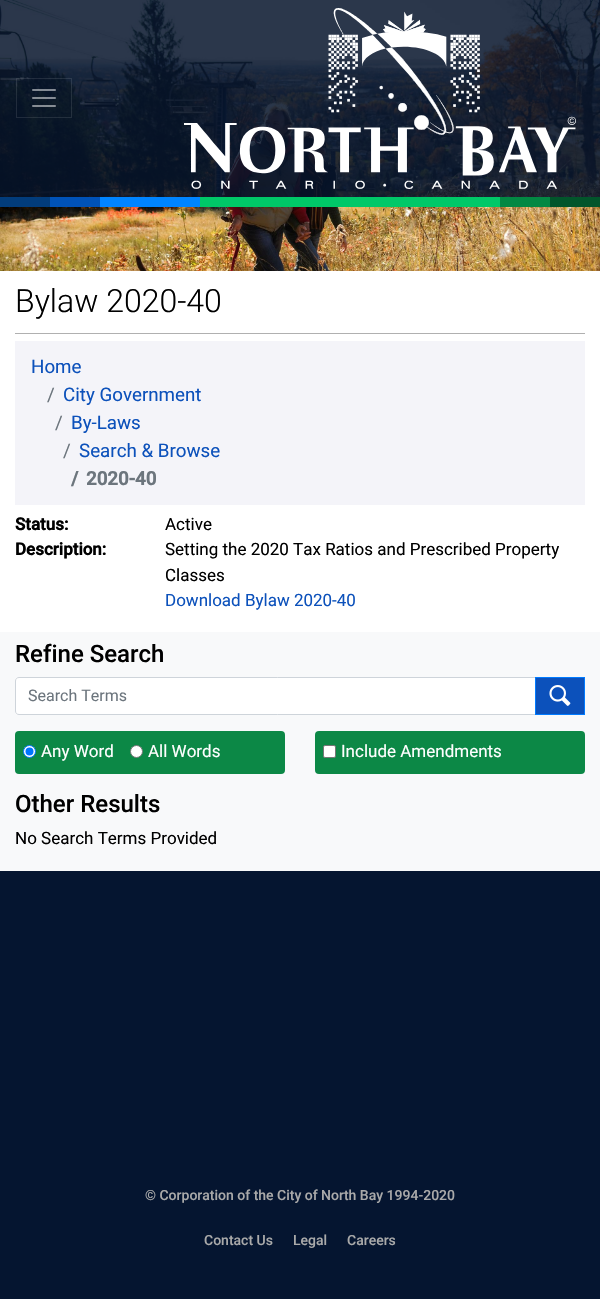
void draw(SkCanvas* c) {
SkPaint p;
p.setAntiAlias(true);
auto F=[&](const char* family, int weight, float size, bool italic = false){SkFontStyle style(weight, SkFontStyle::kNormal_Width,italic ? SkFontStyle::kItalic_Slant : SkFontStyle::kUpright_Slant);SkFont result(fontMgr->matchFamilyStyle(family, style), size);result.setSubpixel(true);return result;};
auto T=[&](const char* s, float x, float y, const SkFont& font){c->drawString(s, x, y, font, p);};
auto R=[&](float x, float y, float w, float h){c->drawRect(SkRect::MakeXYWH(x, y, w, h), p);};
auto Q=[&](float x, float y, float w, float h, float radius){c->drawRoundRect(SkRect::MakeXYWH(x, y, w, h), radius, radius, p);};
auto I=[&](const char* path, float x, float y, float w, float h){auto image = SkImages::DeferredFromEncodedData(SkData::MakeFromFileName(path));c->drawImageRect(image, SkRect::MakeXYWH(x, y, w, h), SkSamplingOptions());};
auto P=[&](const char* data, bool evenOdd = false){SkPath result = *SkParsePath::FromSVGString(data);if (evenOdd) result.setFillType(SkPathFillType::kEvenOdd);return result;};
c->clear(0xff051530);
I("1.png",0,0,600,271);
p.setColor(0x66000000);
R(0,0,600,197);
p.setColor(0xbf051530);
R(0,0,600,197);
p.setStroke(true);
p.setStrokeWidth(1);
p.setColor(0x1affffff);
c->drawRect(SkRect::MakeXYWH(16.5,78.5,55,39),p);
I("2.png",32,89,24,18);
I("3.png",184,8,392,181);
p.setStroke(false);
p.setColor(0xff023c7b);
R(0,197,50,10);
p.setColor(0xff0052b8);
R(50,197,50,10);
p.setColor(0xff0084ff);
R(100,197,100,10);
p.setColor(0xff00c868);
R(200,197,300,10);
p.setColor(0xff028843);
R(500,197,50,10);
p.setColor(0xff02552b);
R(550,197,50,10);
p.setColor(0xffffffff);
R(0,271,600,361);
p.setColor(0xffb0b0b0);
R(15,333,570,1);
auto f1 = F("Roboto",300,32);
p.setColor(0xff000000);
T("Bylaw 2020-40",15,312,f1);
p.setColor(0xfff4f4f9);
R(15,341,570,164);
auto f2 = F("Roboto",400,18.75);
p.setColor(0xff0c51bb);
T("Home",31,373,f2);
p.setColor(0xff6c757d);
T("/",47,401,f2);
p.setColor(0xff0c51bb);
T("City Government",63,401,f2);
p.setColor(0xff6c757d);
T("/",55,429,f2);
p.setColor(0xff0c51bb);
T("By-Laws",71,429,f2);
p.setColor(0xff6c757d);
T("/",63,457,f2);
p.setColor(0xff0c51bb);
T("Search & Browse",79,457,f2);
auto f3 = F("Roboto",700,18.75);
p.setColor(0xff6c757d);
T("/",71,485,f3);
T("2020-40",86,485,f3);
auto f4 = F("Roboto",700,17);
p.setColor(0xff000000);
T("Status:",15,530,f4);
auto f5 = F("Roboto",400,17);
T("Active",165,530,f5);
T("Description:",15,555,f4);
T("Setting the 2020 Tax Ratios and Prescribed Property",165,555,f5);
T("Classes",165,581,f5);
p.setColor(0xff0c51bb);
T("Download Bylaw 2020-40",165,606,f5);
p.setColor(0xfff8f9fa);
R(0,632,600,239);
auto f6 = F("Roboto",500,24);
p.setColor(0xff000000);
T("Refine Search",15,662,f6);
p.setColor(0xffffffff);
c->drawPath(P("M19 677.5h516.5v37h-516.5c-2 0-3.5-1.5-3.5-3.5v-30c0-2 1.5-3.5 3.5-3.5z"),p);
p.setStroke(true);
p.setColor(0xffced4da);
c->drawPath(P("M19 677.5h516.5v37h-516.5c-2 0-3.5-1.5-3.5-3.5v-30c0-2 1.5-3.5 3.5-3.5z"),p);
auto f7 = F("Roboto",400,16);
p.setStroke(false);
p.setColor(0xff6c757d);
T("Search Terms",28,701,f7);
p.setColor(0xff0c51bb);
c->drawRect(SkRect::MakeXYWH(535.5,677.5,49,37),p);
p.setStroke(true);
p.setColor(0xff007bff);
c->drawRect(SkRect::MakeXYWH(535.5,677.5,49,37),p);
I("4.png",549,685,22,21);
p.setStroke(false);
p.setColor(0xff0c8846);
Q(15,731,270,43,4);
p.setColor(0xffffffff);
c->drawCircle(29.5,751.5,6,p);
p.setStroke(true);
p.setColor(0xff0075ff);
c->drawCircle(29.5,751.5,6,p);
p.setStroke(false);
c->drawCircle(29.5,751.5,4,p);
p.setColor(0xffffffff);
T("Any Word",41,757,f5);
c->drawCircle(136.5,751.5,6,p);
p.setStroke(true);
p.setColor(0xff767676);
c->drawCircle(136.5,751.5,6,p);
p.setStroke(false);
p.setColor(0xffffffff);
T("All Words",148,757,f5);
p.setColor(0xff0c8846);
Q(315,731,270,43,4);
p.setColor(0xffffffff);
c->drawRoundRect(SkRect::MakeXYWH(323.5,745.5,12,12),1.5,1.5,p);
p.setStroke(true);
p.setColor(0xff767676);
c->drawRoundRect(SkRect::MakeXYWH(323.5,745.5,12,12),1.5,1.5,p);
p.setStroke(false);
p.setColor(0xffffffff);
T("Include Amendments",341,757,f5);
p.setColor(0xff000000);
T("Other Results",15,812,f6);
T("No Search Terms Provided",15,844,f5);
auto f8 = F("Roboto",500,14);
p.setColor(0xffaaaaaa);
T("© Corporation of the City of North Bay 1994-2020",145,1200,f8);
T("Contact Us",204,1245,f8);
T("Legal",293,1245,f8);
T("Careers",347,1245,f8);
}
